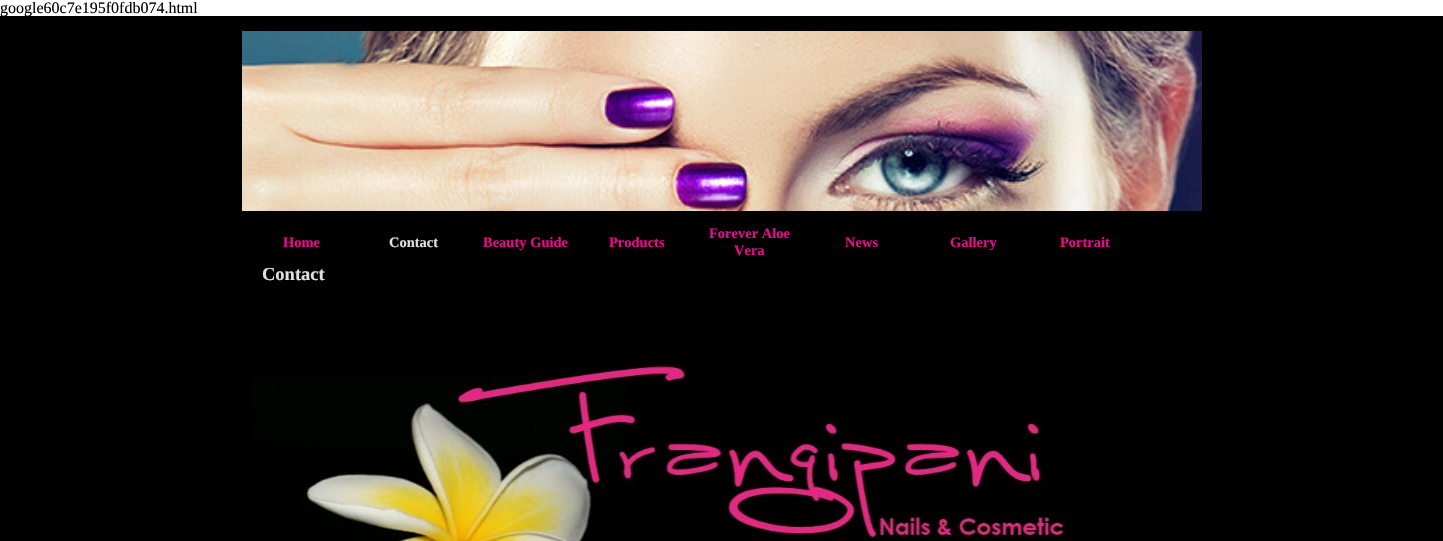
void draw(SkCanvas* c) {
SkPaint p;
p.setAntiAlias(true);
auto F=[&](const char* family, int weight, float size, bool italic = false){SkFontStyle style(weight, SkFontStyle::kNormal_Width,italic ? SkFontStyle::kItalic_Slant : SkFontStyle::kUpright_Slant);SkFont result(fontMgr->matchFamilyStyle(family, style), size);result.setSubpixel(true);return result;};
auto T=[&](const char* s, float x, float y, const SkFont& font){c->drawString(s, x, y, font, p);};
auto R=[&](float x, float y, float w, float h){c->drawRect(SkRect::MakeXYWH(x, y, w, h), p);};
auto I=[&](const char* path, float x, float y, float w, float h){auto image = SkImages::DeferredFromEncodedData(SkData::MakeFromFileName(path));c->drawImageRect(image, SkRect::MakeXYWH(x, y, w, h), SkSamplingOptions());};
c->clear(0xffffffff);
p.setColor(0xff000000);
R(0,16,1443,525);
auto f1 = F("Liberation Serif",400,16);
T("google60c7e195f0fdb074.html",0,13,f1);
I("1.png",242,31,960,180);
auto f2 = F("Liberation Serif",700,18.5);
p.setColor(0xffe0e0e0);
T("Contact",262,280,f2);
p.setColor(0xff000000);
R(266,267,6,1);
auto f3 = F("Liberation Serif",700,14.5);
p.setColor(0xffea0a8e);
T("Home",283,247,f3);
p.setColor(0xffe0e0e0);
T("Contact",389,247,f3);
p.setColor(0xffea0a8e);
T("Beauty Guide",483,247,f3);
T("Products",609,247,f3);
T("Forever Aloe",709,238,f3);
T("Vera",734,255,f3);
T("News",845,247,f3);
T("Gallery",950,247,f3);
T("Portrait",1060,247,f3);
I("2.png",253,362,816,179);
}
